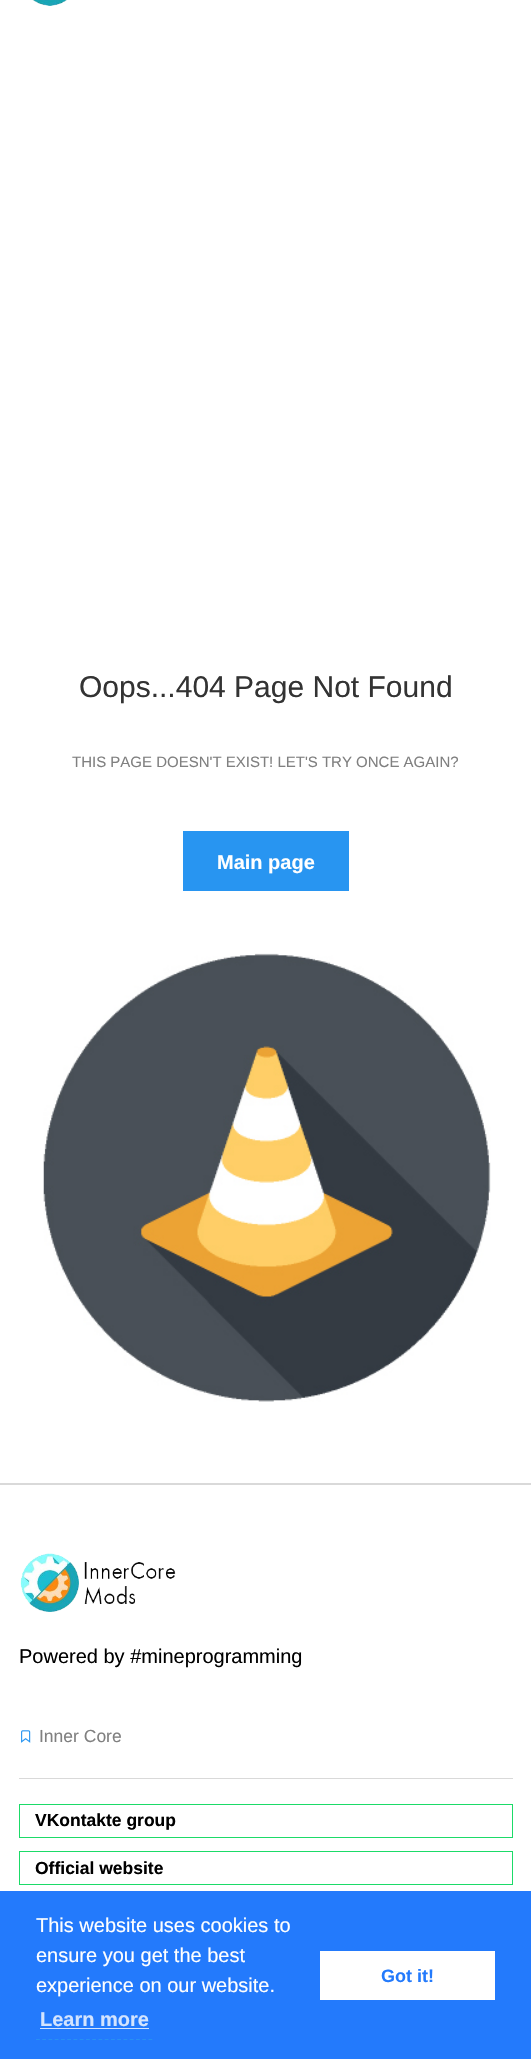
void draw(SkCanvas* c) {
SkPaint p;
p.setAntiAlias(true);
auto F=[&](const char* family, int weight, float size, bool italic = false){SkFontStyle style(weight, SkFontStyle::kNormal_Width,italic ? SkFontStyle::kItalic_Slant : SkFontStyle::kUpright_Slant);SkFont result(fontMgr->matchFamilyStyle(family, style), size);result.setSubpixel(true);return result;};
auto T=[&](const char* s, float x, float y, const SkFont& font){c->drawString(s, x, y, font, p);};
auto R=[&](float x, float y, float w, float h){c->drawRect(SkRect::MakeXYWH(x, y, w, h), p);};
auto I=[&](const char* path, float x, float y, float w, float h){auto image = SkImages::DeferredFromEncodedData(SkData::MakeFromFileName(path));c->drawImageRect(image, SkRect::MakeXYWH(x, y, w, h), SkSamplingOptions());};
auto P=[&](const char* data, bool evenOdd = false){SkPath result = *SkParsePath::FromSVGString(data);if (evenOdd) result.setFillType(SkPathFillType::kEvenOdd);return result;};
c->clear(0xffffffff);
I("1.png",32,0,35,6);
auto f1 = F("Liberation Sans",400,30);
p.setColor(0xff333333);
T("Oops...404 Page Not Found",79,697,f1);
auto f2 = F("Liberation Sans",400,15);
p.setColor(0xff808080);
T("THIS PAGE DOESN'T EXIST! LET'S TRY ONCE AGAIN?",72,767,f2);
p.setColor(0xff2895f1);
R(183,831,166,60);
auto f3 = F("Liberation Sans",700,20);
p.setColor(0xffffffff);
T("Main page",217,869,f3);
I("2.png",43,953,448,449);
p.setColor(0xffd9d9d9);
R(0,1483,531,2);
I("3.png",20,1553,156,59);
auto f4 = F("Liberation Sans",400,20);
p.setColor(0xff000000);
T("Powered by #mineprogramming",19,1663,f4);
p.setColor(0xffd9d9d9);
R(19,1778,494,1);
I("4.png",21,1730,10,13);
auto f5 = F("Liberation Sans",400,17.5);
p.setColor(0xff808080);
T("Inner Core",39,1742,f5);
p.setStroke(true);
p.setStrokeWidth(1);
p.setColor(0xff1bdb68);
c->drawRect(SkRect::MakeXYWH(19.5,1804.5,493,33),p);
auto f6 = F("Liberation Sans",700,17.5);
p.setStroke(false);
p.setColor(0xff000000);
T("VKontakte group",35,1826,f6);
p.setStroke(true);
p.setColor(0xff1bdb68);
c->drawRect(SkRect::MakeXYWH(19.5,1851.5,493,33),p);
p.setStroke(false);
p.setColor(0xff000000);
T("Official website",35,1874,f6);
p.setColor(0xff237afc);
R(0,1891,531,168);
p.setColor(0xffffffff);
T("This website uses cookies to",36,1932,f4);
T("ensure you get the best",36,1962,f4);
T("experience on our website.",36,1992,f4);
p.setStroke(true);
p.setStrokeWidth(1.2);
p.setColor(0xff2790f3);
p.setPathEffect(SkDashPathEffect::Make({{3.75f,2.5f}}, 0));
c->drawPath(P("M36 2039.5h116.5"),p);
p.setPathEffect(nullptr);
p.setStroke(false);
p.setColor(0xffd3e4fe);
T("Learn more",40,2026,f3);
R(40,2028,109,1);
p.setColor(0xffffffff);
R(320,1951,175,49);
auto f7 = F("Liberation Sans",700,18);
p.setColor(0xff237afc);
T("Got it!",381,1982,f7);
}
